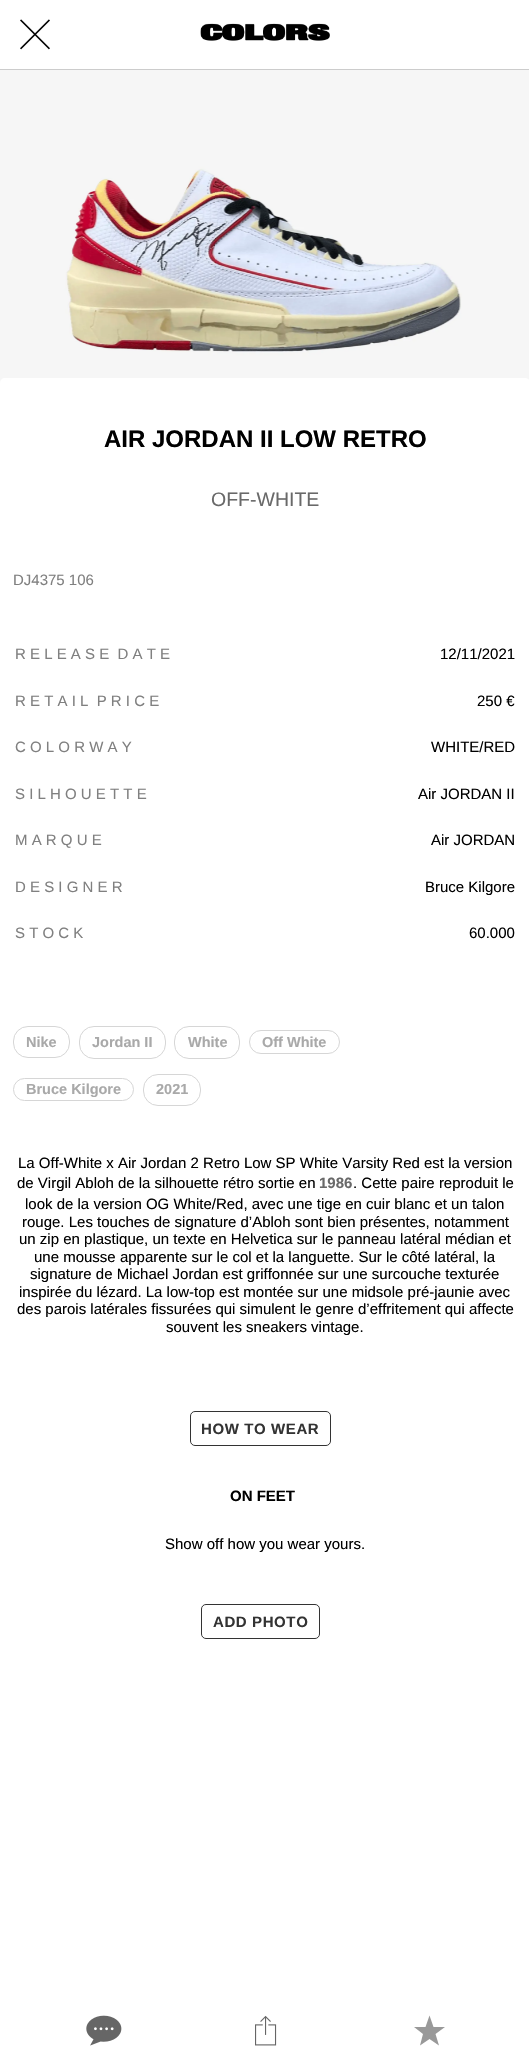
void draw(SkCanvas* c) {
SkPaint p;
p.setAntiAlias(true);
auto F=[&](const char* family, int weight, float size, bool italic = false){SkFontStyle style(weight, SkFontStyle::kNormal_Width,italic ? SkFontStyle::kItalic_Slant : SkFontStyle::kUpright_Slant);SkFont result(fontMgr->matchFamilyStyle(family, style), size);result.setSubpixel(true);return result;};
auto T=[&](const char* s, float x, float y, const SkFont& font){c->drawString(s, x, y, font, p);};
auto L=[&](const char* s, float x, float y, const SkFont& font, const SkPaint& ink, float letter, float word){std::vector<SkGlyphID> glyphs(font.countText(s, strlen(s), SkTextEncoding::kUTF8));std::vector<float> xs(glyphs.size());font.textToGlyphs(s, strlen(s), SkTextEncoding::kUTF8, glyphs);font.getXPos(glyphs, xs, x);float extra = 0;for (size_t i = 0; i < glyphs.size(); i++) {xs[i] += extra;extra += letter + word * (glyphs[i] == font.unicharToGlyph(' '));}c->drawTextBlob(SkTextBlob::MakeFromPosHGlyphs(glyphs, xs, y, font), 0, 0, ink);};
auto R=[&](float x, float y, float w, float h){c->drawRect(SkRect::MakeXYWH(x, y, w, h), p);};
auto I=[&](const char* path, float x, float y, float w, float h){auto image = SkImages::DeferredFromEncodedData(SkData::MakeFromFileName(path));c->drawImageRect(image, SkRect::MakeXYWH(x, y, w, h), SkSamplingOptions());};
auto P=[&](const char* data, bool evenOdd = false){SkPath result = *SkParsePath::FromSVGString(data);if (evenOdd) result.setFillType(SkPathFillType::kEvenOdd);return result;};
c->clear(0xffffffff);
p.setColor(0xffcccccc);
R(0,69,529,1);
I("1.png",20,19,30,31);
I("2.png",200,23,130,18);
I("3.png",0,70,529,313);
p.setColor(0xffffffff);
c->drawPath(P("M5 378h520c3 0 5 2 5 5v1607h-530v-1607c0-3 2-5 5-5z"),p);
auto f1 = F("Liberation Sans",700,24);
p.setColor(0xff000000);
T("AIR JORDAN II LOW RETRO",104,447,f1);
auto f2 = F("Liberation Sans",400,19.5);
p.setColor(0xff696969);
T("OFF-WHITE",211,506,f2);
auto f3 = F("Liberation Sans",400,15);
p.setColor(0xff808080);
T("DJ4375 106",13,585,f3);
T("R E L E A S E  D A T E",15,659,f3);
p.setColor(0xff000000);
T("12/11/2021",440,659,f3);
p.setColor(0xff808080);
T("R E T A I L  P R I C E",15,706,f3);
p.setColor(0xff000000);
T("250 €",477,706,f3);
p.setColor(0xff808080);
T("C O L O R W A Y",15,752,f3);
p.setColor(0xff000000);
T("WHITE/RED",431,752,f3);
p.setColor(0xff808080);
T("S I L H O U E T T E",15,799,f3);
p.setColor(0xff000000);
T("Air JORDAN II",418,799,f3);
p.setColor(0xff808080);
T("M A R Q U E",15,845,f3);
p.setColor(0xff000000);
T("Air JORDAN",431,845,f3);
p.setColor(0xff808080);
T("D E S I G N E R",15,892,f3);
p.setColor(0xff000000);
T("Bruce Kilgore",425,892,f3);
p.setColor(0xff808080);
T("S T O C K",15,938,f3);
p.setColor(0xff000000);
T("60.000",469,938,f3);
p.setStroke(true);
p.setStrokeWidth(1);
p.setColor(0xffd6d6d6);
c->drawRoundRect(SkRect::MakeXYWH(13.5,1026.5,56,31),14.5,14.5,p);
auto f4 = F("Liberation Sans",700,14.5);
p.setStroke(false);
p.setColor(0xffa9a9a9);
T("Nike",26,1047,f4);
p.setStroke(true);
p.setColor(0xffd6d6d6);
c->drawRoundRect(SkRect::MakeXYWH(79.5,1026.5,86,32),14.5,14.5,p);
p.setStroke(false);
p.setColor(0xffa9a9a9);
T("Jordan II",92,1047,f4);
p.setStroke(true);
p.setColor(0xffd6d6d6);
c->drawRoundRect(SkRect::MakeXYWH(174.5,1026.5,65,32),14.5,14.5,p);
p.setStroke(false);
p.setColor(0xffa9a9a9);
T("White",188,1047,f4);
p.setStroke(true);
p.setColor(0xffd6d6d6);
c->drawRoundRect(SkRect::MakeXYWH(249.5,1030.5,90,23),11.5,11.5,p);
p.setStroke(false);
p.setColor(0xffa9a9a9);
T("Off White",262,1047,f4);
p.setStroke(true);
p.setColor(0xffd6d6d6);
c->drawRoundRect(SkRect::MakeXYWH(13.5,1078.5,120,22),11,11,p);
p.setStroke(false);
p.setColor(0xffa9a9a9);
T("Bruce Kilgore",26,1094,f4);
p.setStroke(true);
p.setColor(0xffd6d6d6);
c->drawRoundRect(SkRect::MakeXYWH(143.5,1074.5,57,31),14.5,14.5,p);
p.setStroke(false);
p.setColor(0xffa9a9a9);
T("2021",156,1094,f4);
p.setColor(0xff000000);
T("La Off-White x Air Jordan 2 Retro Low SP White Varsity Red est la version",18,1168,f3);
T("de Virgil Abloh de la silhouette rétro sortie en",17,1188,f3);
auto f5 = F("Liberation Sans",700,15);
p.setColor(0xff696969);
T("1986",319,1188,f5);
p.setColor(0xff000000);
T(". Cette paire reproduit le",353,1188,f3);
T("look de la version OG White/Red, avec une tige en cuir blanc et un talon",25,1209,f3);
T("rouge. Les touches de signature d’Abloh sont bien présentes, notamment",22,1227,f3);
T("un zip en plastique, un texte en Helvetica sur le panneau latéral médian et",19,1244,f3);
T("une mousse apparente sur le col et la languette. Sur le côté latéral, la",34,1262,f3);
T("signature de Michael Jordan est griffonnée sur une surcouche texturée",30,1279,f3);
T("inspirée du lézard. La low-top est montée sur une midsole pré-jaunie avec",19,1297,f3);
T("des parois latérales fissurées qui simulent le genre d’effritement qui affecte",17,1314,f3);
T("souvent les sneakers vintage.",166,1332,f3);
p.setStroke(true);
p.setColor(0xff333333);
c->drawRoundRect(SkRect::MakeXYWH(190.5,1411.5,140,34),4.5,4.5,p);
p.setStroke(false);
L("HOW TO WEAR",201,1434,f5,p,.6,0);
p.setColor(0xff000000);
T("ON FEET",230,1501,f5);
T("Show off how you wear yours.",165,1549,f3);
p.setStroke(true);
p.setColor(0xff333333);
c->drawRoundRect(SkRect::MakeXYWH(201.5,1604.5,118,34),4.5,4.5,p);
p.setStroke(false);
L("ADD PHOTO",213,1627,f5,p,.6,0);
I("4.png",86,2015,36,31);
I("5.png",255,2015,22,31);
p.setColor(0xff999999);
c->drawPath(P("M445 2027h-11.5l-4-11.5l-4 11.5h-11.5l9 7l-3 11.5l9.5-6.5l9.5 6.5l-3.5-11.5z"),p);
}
